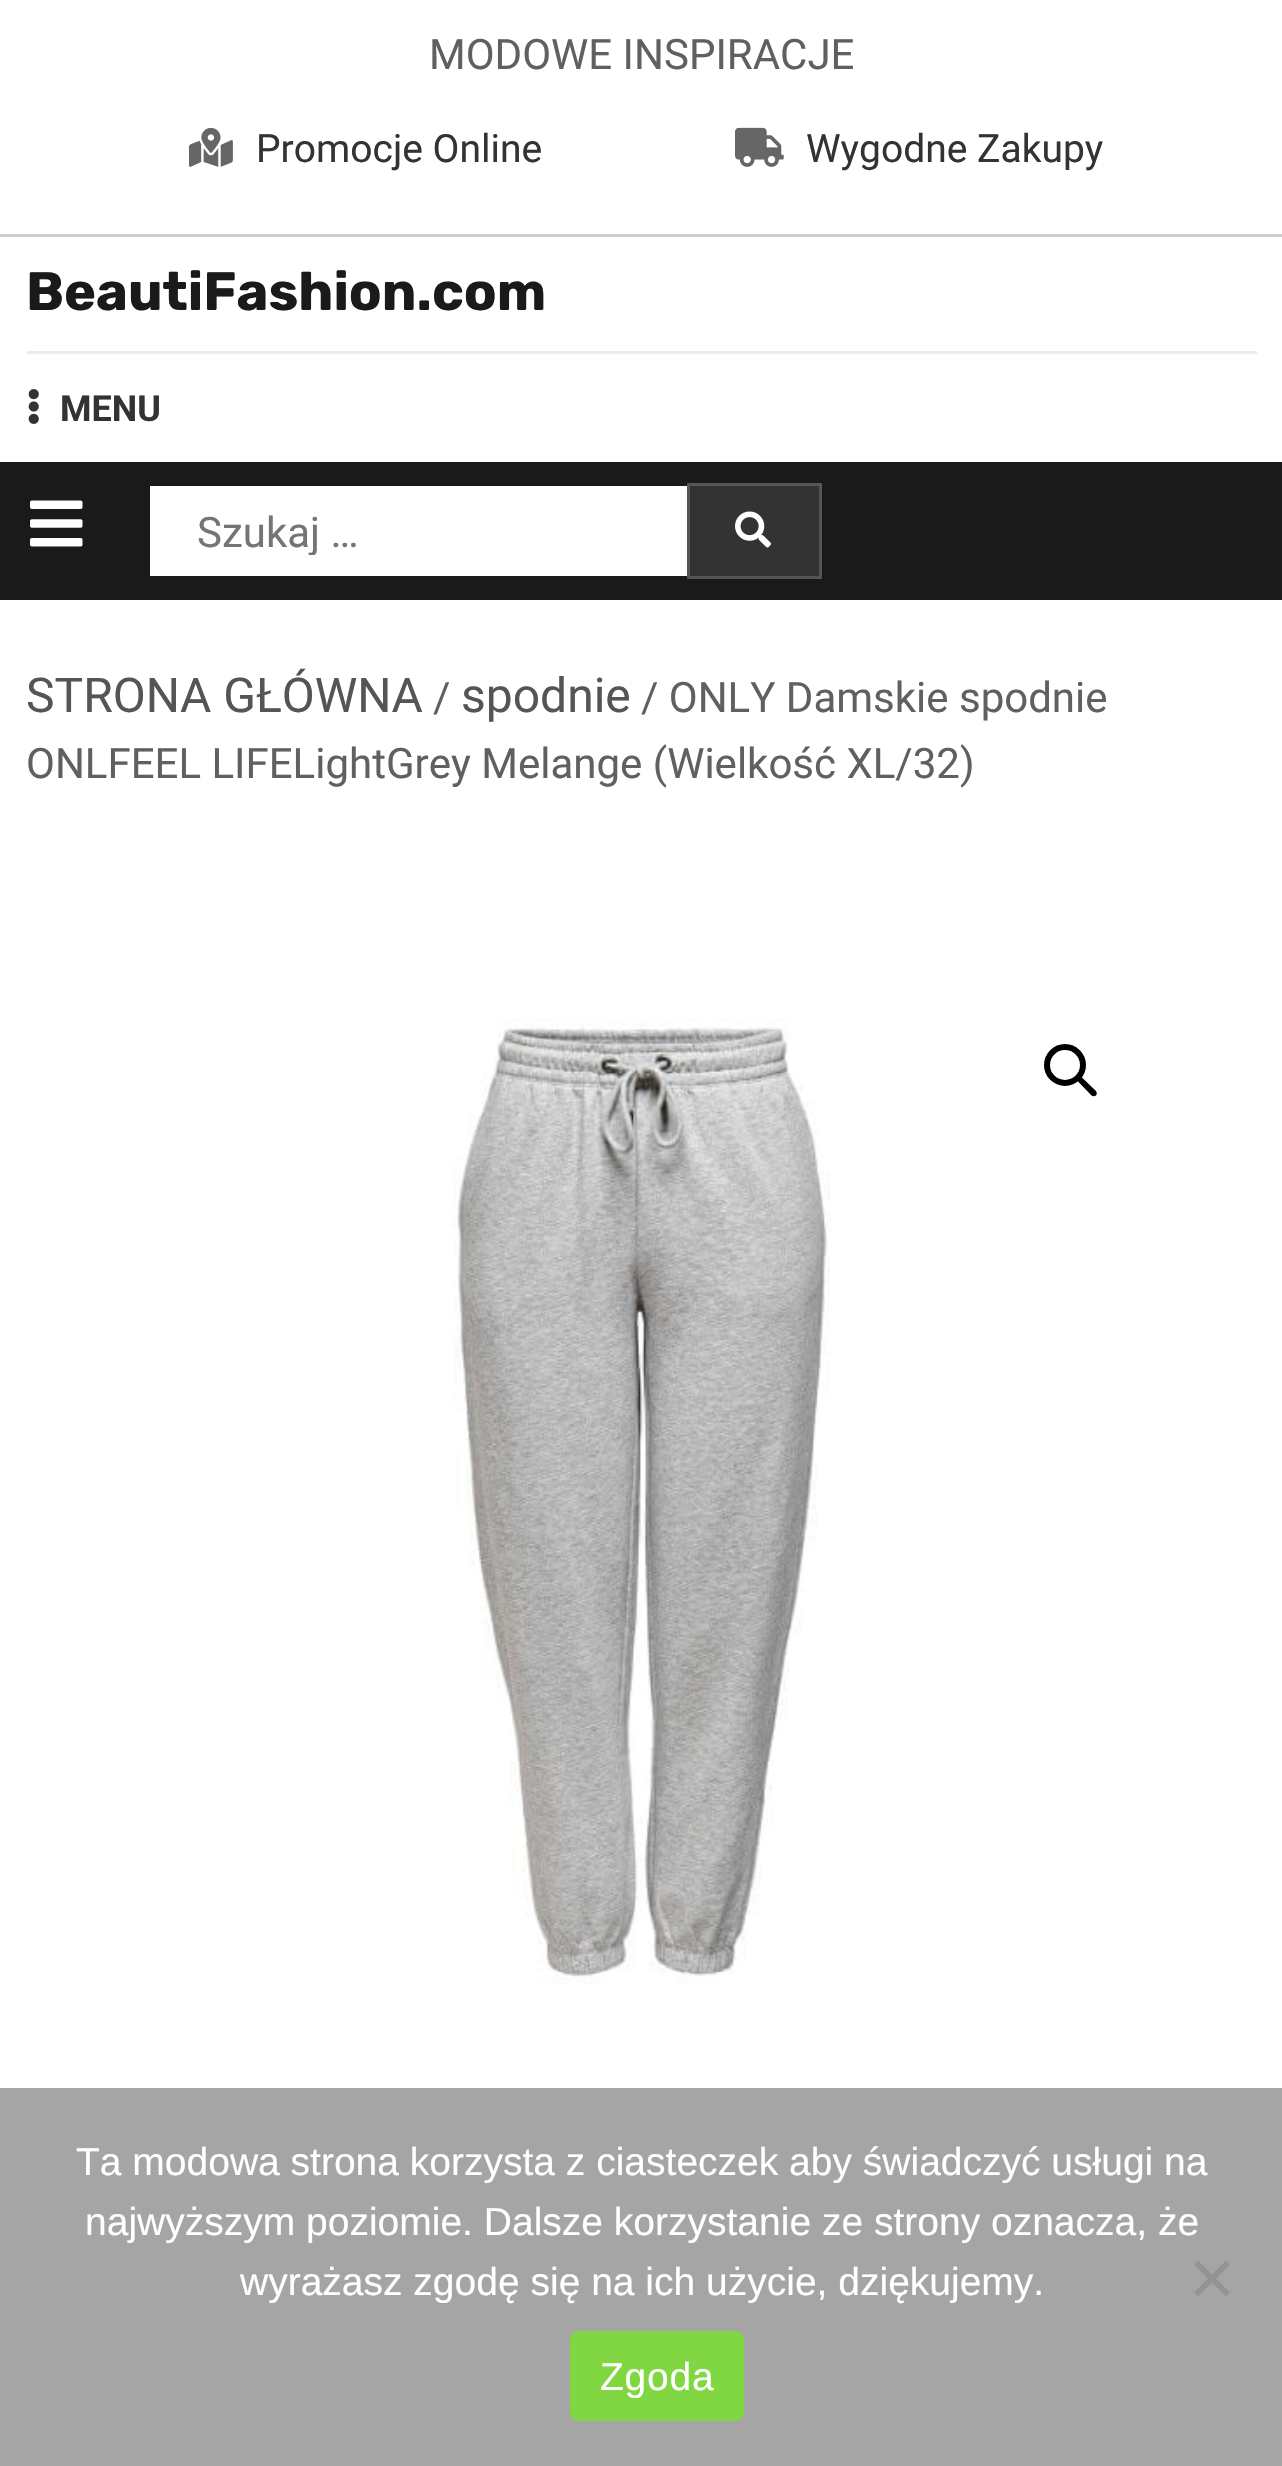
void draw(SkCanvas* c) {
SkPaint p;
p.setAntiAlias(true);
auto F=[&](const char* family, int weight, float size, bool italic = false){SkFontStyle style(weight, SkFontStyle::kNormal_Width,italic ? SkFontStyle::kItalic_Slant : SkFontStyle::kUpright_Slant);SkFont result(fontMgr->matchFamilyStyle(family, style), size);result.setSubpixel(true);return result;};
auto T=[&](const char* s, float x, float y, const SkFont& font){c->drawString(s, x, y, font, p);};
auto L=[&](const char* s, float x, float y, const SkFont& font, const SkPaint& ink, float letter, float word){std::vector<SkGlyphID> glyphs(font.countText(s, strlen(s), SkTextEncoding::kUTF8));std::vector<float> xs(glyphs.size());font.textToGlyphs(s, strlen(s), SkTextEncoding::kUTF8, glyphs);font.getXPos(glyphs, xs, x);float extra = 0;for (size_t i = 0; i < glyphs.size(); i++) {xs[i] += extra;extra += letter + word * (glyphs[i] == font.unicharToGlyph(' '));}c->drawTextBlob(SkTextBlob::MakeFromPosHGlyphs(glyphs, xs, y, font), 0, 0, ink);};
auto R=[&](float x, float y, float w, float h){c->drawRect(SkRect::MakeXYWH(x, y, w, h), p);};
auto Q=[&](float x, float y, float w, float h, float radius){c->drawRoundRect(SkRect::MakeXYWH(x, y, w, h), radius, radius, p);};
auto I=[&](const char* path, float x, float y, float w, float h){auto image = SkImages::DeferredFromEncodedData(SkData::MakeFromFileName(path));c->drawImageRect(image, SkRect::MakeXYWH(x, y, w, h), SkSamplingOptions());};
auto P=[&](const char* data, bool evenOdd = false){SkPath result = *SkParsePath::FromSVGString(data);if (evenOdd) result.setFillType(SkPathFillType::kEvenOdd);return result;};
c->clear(0xffffffff);
p.setColor(0xffcccccc);
R(0,234,1282,3);
auto f1 = F("Roboto",400,42);
p.setColor(0xff606060);
T("MODOWE INSPIRACJE",429,69,f1);
I("1.png",189,127,44,40);
auto f2 = F("Roboto",400,39);
p.setColor(0xff333333);
T("Promocje Online",256,162,f2);
I("2.png",735,127,49,40);
T("Wygodne Zakupy",806,162,f2);
p.setColor(0xffececec);
R(27,351,1230,3);
auto f3 = F("Rubik",700,54);
p.setColor(0xff1a1a1a);
T("BeautiFashion.com",26,310,f3);
I("3.png",28,389,11,35);
auto f4 = F("Roboto",700,36);
p.setColor(0xff333333);
T("MENU",60,421,f4);
p.setColor(0xff1a1a1a);
R(0,462,1282,138);
I("4.png",30,500,53,47);
p.setColor(0xffffffff);
R(150,486,537,90);
c->save();
c->clipRect(SkRect::MakeXYWH(198,507,402,48));
p.setColor(0xff757575);
T("Szukaj …",197,547,f1);
c->restore();
p.setColor(0xff333333);
c->drawRect(SkRect::MakeXYWH(688.5,484.5,132,93),p);
p.setStroke(true);
p.setStrokeWidth(3);
p.setColor(0xff555555);
c->drawRect(SkRect::MakeXYWH(688.5,484.5,132,93),p);
I("5.png",735,511,36,37);
auto f5 = F("Roboto",400,48);
p.setStroke(false);
T("STRONA GŁÓWNA",26,712,f5);
p.setColor(0xff606060);
T("/",433,712,f1);
p.setColor(0xff555555);
T("spodnie",461,712,f5);
p.setColor(0xff606060);
T("/ ONLY Damskie spodnie",641,712,f1);
T("ONLFEEL LIFELightGrey Melange (Wielkość XL/32)",26,778,f1);
I("6.png",453,1018,378,966);
p.setStroke(true);
p.setStrokeWidth(6);
p.setColor(0xff000000);
c->drawCircle(1065,1065,18,p);
p.setStroke(false);
c->drawPath(P("M1079 1078.5c1-1.5 3-1.5 4 0l13 12.5c1 1.5 1 3 0 4.5c-1.5 1-3 1-4.5 0l-12.5-13c-1.5-1-1.5-3 0-4z"),p);
p.setColor(0xffa5a5a5);
R(0,2088,1282,378);
auto f6 = F("Liberation Sans",400,39);
p.setColor(0xffffffff);
T("Ta modowa strona korzysta z ciasteczek aby świadczyć usługi na",76,2175,f6);
T("najwyższym poziomie. Dalsze korzystanie ze strony oznacza, że",85,2235,f6);
T("wyrażasz zgodę się na ich użycie, dziękujemy.",240,2295,f6);
p.setColor(0xff939393);
c->drawPath(P("M1226 2260.5l4 4l-32 32l-4-4z"),p);
c->drawPath(P("M1194 2264.5l4-4l32 32l-4 4z"),p);
p.setColor(0xff81d742);
Q(570,2331,174,90,9);
p.setColor(0xffffffff);
L("Zgoda",600,2390,f6,p,.75,0);
}
